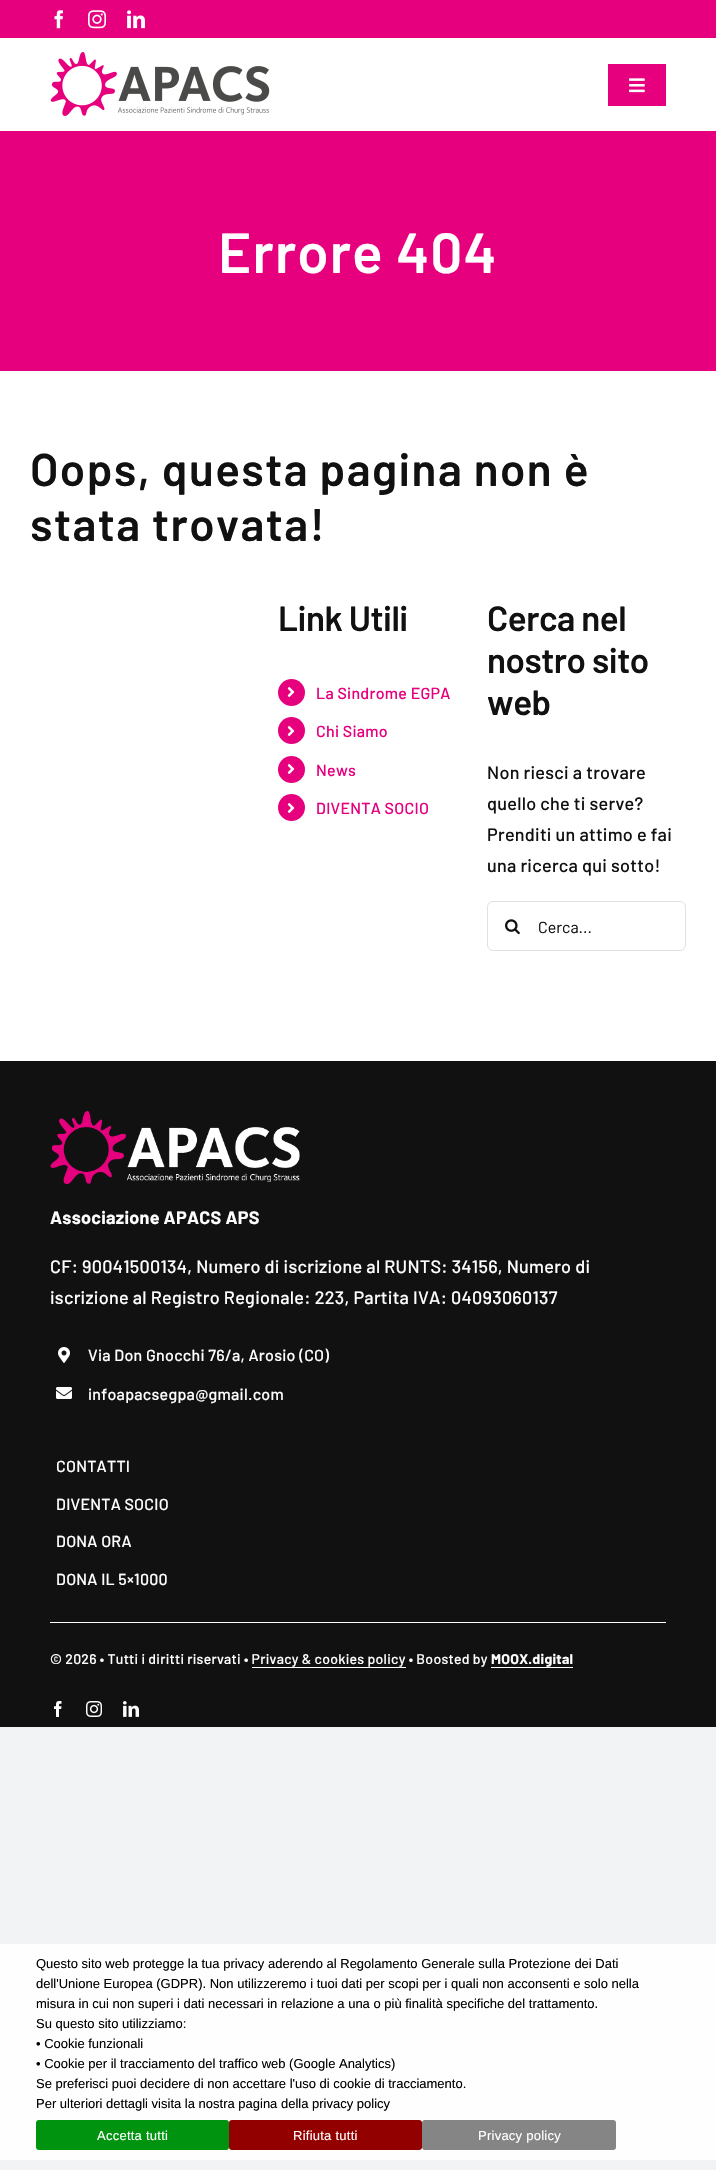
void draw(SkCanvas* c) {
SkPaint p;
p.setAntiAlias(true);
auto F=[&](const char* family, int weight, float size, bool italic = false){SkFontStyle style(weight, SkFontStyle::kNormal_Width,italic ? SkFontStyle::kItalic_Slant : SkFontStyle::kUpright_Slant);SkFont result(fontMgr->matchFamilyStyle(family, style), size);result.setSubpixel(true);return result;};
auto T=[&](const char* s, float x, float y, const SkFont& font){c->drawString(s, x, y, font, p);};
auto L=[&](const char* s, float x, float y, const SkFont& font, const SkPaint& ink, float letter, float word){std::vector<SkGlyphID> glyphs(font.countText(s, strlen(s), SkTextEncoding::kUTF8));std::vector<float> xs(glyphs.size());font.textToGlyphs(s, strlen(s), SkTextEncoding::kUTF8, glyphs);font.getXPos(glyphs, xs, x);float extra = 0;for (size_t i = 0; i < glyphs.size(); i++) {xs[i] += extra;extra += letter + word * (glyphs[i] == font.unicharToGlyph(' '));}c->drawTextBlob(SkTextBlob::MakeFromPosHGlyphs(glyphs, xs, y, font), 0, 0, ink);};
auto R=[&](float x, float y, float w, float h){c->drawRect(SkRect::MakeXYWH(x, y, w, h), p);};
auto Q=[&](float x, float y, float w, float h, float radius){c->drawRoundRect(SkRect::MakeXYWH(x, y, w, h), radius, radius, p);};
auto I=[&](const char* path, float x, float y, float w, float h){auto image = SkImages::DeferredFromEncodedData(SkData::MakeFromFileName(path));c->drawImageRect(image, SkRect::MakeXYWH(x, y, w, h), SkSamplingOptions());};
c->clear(0xfff2f3f5);
p.setColor(0xffffffff);
R(0,38,716,1023);
p.setColor(0xffe6007e);
R(0,0,716,38);
I("1.png",54,10,9,19);
I("2.png",88,10,18,19);
I("3.png",127,10,18,19);
I("4.png",50,52,220,64);
R(608,64,58,42);
I("5.png",629,78,16,15);
R(0,131,716,240);
auto f1 = F("Barlow",600,56.5);
p.setColor(0xffffffff);
L("Errore 404",218,273,f1,p,1.1,0);
auto f2 = F("Barlow",600,45.75);
p.setColor(0xff111111);
L("Oops, questa pagina non è",30,486,f2,p,1.4,0);
L("stata trovata!",30,541,f2,p,1.4,0);
auto f3 = F("Barlow",600,35);
L("Link Utili",278,631,f3,p,-.5,0);
p.setColor(0xffe6007e);
c->drawCircle(291.5,692.5,13.5,p);
I("6.png",287,687,8,10);
auto f4 = F("Barlow",500,16);
L("La Sindrome EGPA",316,699,f4,p,.27,0);
c->drawCircle(291.5,730.5,13.5,p);
I("6.png",287,726,8,10);
L("Chi Siamo",316,737,f4,p,.27,0);
c->drawCircle(291.5,769.5,13.5,p);
I("6.png",287,764,8,10);
L("News",316,776,f4,p,.27,0);
c->drawCircle(291.5,807.5,13.5,p);
I("6.png",287,803,8,10);
L("DIVENTA SOCIO",316,814,f4,p,.27,0);
p.setColor(0xff111111);
L("Cerca nel",487,631,f3,p,-.5,0);
L("nostro sito",487,673,f3,p,-.5,0);
L("web",487,715,f3,p,-.5,0);
auto f5 = F("Barlow",500,18);
L("Non riesci a trovare",487,779,f5,p,.27,0);
L("quello che ti serve?",487,810,f5,p,.27,0);
L("Prenditi un attimo e fai",487,841,f5,p,.27,0);
L("una ricerca qui sotto!",487,872,f5,p,.27,0);
p.setStroke(true);
p.setStrokeWidth(1);
p.setColor(0xffe0e1e2);
c->drawRoundRect(SkRect::MakeXYWH(487.5,901.5,198,49),5.5,5.5,p);
I("7.png",505,919,15,16);
auto f6 = F("Barlow",400,16);
p.setStroke(false);
p.setColor(0xff111111);
T("Cerca...",538,933,f6);
R(0,1061,716,666);
I("8.png",50,1111,250,73);
auto f7 = F("Barlow",700,18);
p.setColor(0xffffffff);
L("Associazione APACS APS",50,1224,f7,p,.27,0);
L("CF: 90041500134, Numero di iscrizione al RUNTS: 34156, Numero di",50,1273,f5,p,.27,0);
L("iscrizione al Registro Regionale: 223, Partita IVA: 04093060137",50,1304,f5,p,.27,0);
I("9.png",58,1347,12,16);
L("Via Don Gnocchi 76/a, Arosio (CO)",88,1361,f4,p,.27,0);
I("10.png",56,1387,16,12);
L("infoapacsegpa@gmail.com",88,1400,f4,p,.27,0);
L("CONTATTI",56,1472,f4,p,.25,0);
L("DIVENTA SOCIO",56,1510,f4,p,.25,0);
L("DONA ORA",56,1547,f4,p,.25,0);
L("DONA IL 5×1000",56,1585,f4,p,.25,0);
R(50,1622,616,1);
auto f8 = F("Barlow",500,14);
L("© 2026 • Tutti i diritti riservati • Privacy & cookies policy • Boosted by",50,1664,f8,p,.27,0);
auto f9 = F("Barlow",700,14);
L("MOOX.digital",491,1664,f9,p,.27,0);
R(491,1667,82,1);
R(252,1667,154,1);
I("11.png",54,1701,8,16);
I("12.png",86,1701,16,16);
I("13.png",123,1701,16,16);
p.setColor(0xfffefefe);
R(0,1944,716,216);
auto f10 = F("Liberation Sans",400,13);
p.setColor(0xff000000);
T("Questo sito web protegge la tua privacy aderendo al Regolamento Generale sulla Protezione dei Dati",36,1968,f10);
T("dell'Unione Europea (GDPR). Non utilizzeremo i tuoi dati per scopi per i quali non acconsenti e solo nella",36,1988,f10);
T("misura in cui non superi i dati necessari in relazione a una o più finalità specifiche del trattamento.",36,2008,f10);
T("Su questo sito utilizziamo:",36,2028,f10);
T("• Cookie funzionali",36,2048,f10);
T("• Cookie per il tracciamento del traffico web (Google Analytics)",36,2068,f10);
T("Se preferisci puoi decidere di non accettare l'uso di cookie di tracciamento.",36,2088,f10);
T("Per ulteriori dettagli visita la nostra pagina della privacy policy",36,2108,f10);
p.setColor(0xff00930f);
Q(36,2120,193,30,3);
p.setColor(0xffffffff);
L("Accetta tutti",97,2140,f10,p,.25,0);
p.setColor(0xff930000);
Q(229,2120,193,30,3);
p.setColor(0xffffffff);
L("Rifiuta tutti",293,2140,f10,p,.25,0);
p.setColor(0xff858585);
Q(422,2120,194,30,3);
p.setColor(0xffffffff);
L("Privacy policy",478,2140,f10,p,.25,0);
}
